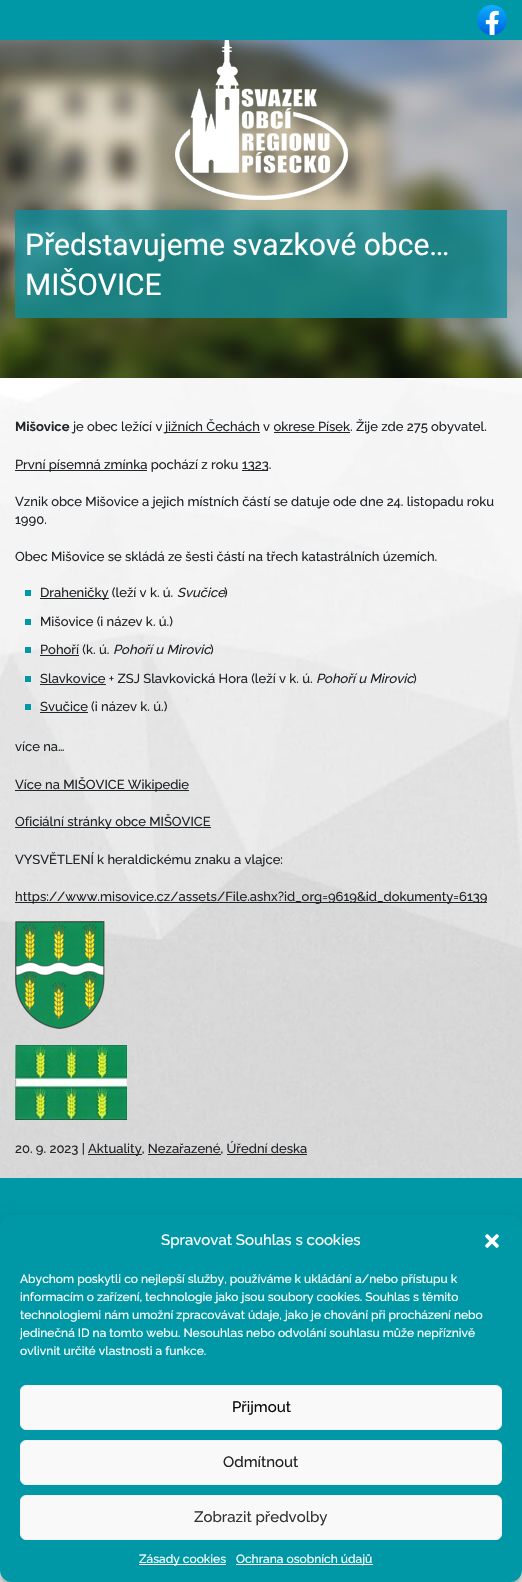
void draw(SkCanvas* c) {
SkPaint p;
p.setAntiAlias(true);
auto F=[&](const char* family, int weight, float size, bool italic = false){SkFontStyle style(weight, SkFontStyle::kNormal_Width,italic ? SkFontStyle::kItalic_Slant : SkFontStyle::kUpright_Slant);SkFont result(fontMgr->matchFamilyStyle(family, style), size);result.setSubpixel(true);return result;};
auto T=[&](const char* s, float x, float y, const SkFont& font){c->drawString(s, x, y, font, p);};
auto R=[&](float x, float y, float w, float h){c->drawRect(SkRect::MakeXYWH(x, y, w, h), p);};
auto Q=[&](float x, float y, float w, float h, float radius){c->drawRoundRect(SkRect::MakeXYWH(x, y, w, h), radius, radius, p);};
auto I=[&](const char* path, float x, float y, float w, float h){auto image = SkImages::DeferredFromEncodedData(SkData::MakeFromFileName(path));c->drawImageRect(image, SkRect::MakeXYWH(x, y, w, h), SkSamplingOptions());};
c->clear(0xffffffff);
p.setColor(0xff0098a6);
R(0,0,522,40);
I("1.png",477,5,30,30);
I("2.png",0,40,522,338);
I("3.png",175,40,173,160);
p.setColor(0xcc0f8c99);
R(15,210,492,108);
auto f1 = F("Roboto",400,30);
p.setColor(0xffffffff);
T("Představujeme svazkové obce…",25,255,f1);
T("MIŠOVICE",25,295,f1);
I("4.png",0,378,522,800);
auto f2 = F("Raleway",700,13);
p.setColor(0xff212529);
T("Mišovice",15,431,f2);
auto f3 = F("Raleway",500,13);
T("je obec ležící v",73,431,f3);
R(165,432,95,1);
T("jižních Čechách v okrese Písek. Žije zde 275 obyvatel.",165,431,f3);
R(274,432,76,1);
R(15,470,132,1);
T("První písemná zmínka pochází z roku",15,469,f3);
R(242,470,26,1);
T("1323.",242,469,f3);
T("Vznik obce Mišovice a jejich místních částí se datuje ode dne 24. listopadu roku",15,506,f3);
T("1990.",15,524,f3);
T("Obec Mišovice se skládá ze šesti částí na třech katastrálních územích.",15,561,f3);
p.setColor(0xff0098a6);
R(25,590,6,6);
p.setColor(0xff212529);
R(40,598,69,1);
T("Draheničky (leží v k. ú.",40,597,f3);
auto f4 = F("Raleway",500,13,true);
T("Svučice",177,597,f4);
T(")",224,597,f3);
p.setColor(0xff0098a6);
R(25,619,6,6);
p.setColor(0xff212529);
T("Mišovice (i název k. ú.)",40,626,f3);
T("Pohoří (k. ú.",40,654,f3);
R(40,655,39,1);
T("Pohoří u Mirovic",113,654,f4);
p.setColor(0xff0098a6);
R(25,647,6,6);
p.setColor(0xff212529);
T(")",210,654,f3);
T("Slavkovice + ZSJ Slavkovická Hora (leží v k. ú.",40,683,f3);
R(40,684,66,1);
T("Pohoří u Mirovic",316,683,f4);
p.setColor(0xff0098a6);
R(25,676,6,6);
p.setColor(0xff212529);
T(")",413,683,f3);
p.setColor(0xff0098a6);
R(25,704,6,6);
p.setColor(0xff212529);
T("Svučice (i název k. ú.)",40,711,f3);
R(40,712,48,1);
T("více na…",15,751,f3);
R(15,790,174,1);
T("Více na MIŠOVICE Wikipedie",15,789,f3);
R(15,827,196,1);
T("Oficiální stránky obce MIŠOVICE",15,826,f3);
T("VYSVĚTLENÍ k heraldickému znaku a vlajce:",15,864,f3);
R(15,902,472,1);
T("https://www.misovice.cz/assets/File.ashx?id_org=9619&id_dokumenty=6139",15,901,f3);
I("5.png",15,921,90,108);
I("6.png",15,1045,112,75);
T("20. 9. 2023 |",15,1153,f3);
R(88,1154,54,1);
T("Aktuality, Nezařazené, Úřední deska",88,1153,f3);
R(148,1154,73,1);
R(227,1154,80,1);
p.setColor(0xff0098a6);
R(0,1178,522,49);
p.setColor(0x3b000000);
p.setMaskFilter(SkMaskFilter::MakeBlur(kNormal_SkBlurStyle, 3));
c->drawRoundRect(SkRect::MakeXYWH(0,1221,522,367),12,12,p);
p.setMaskFilter(nullptr);
p.setColor(0x30000000);
p.setMaskFilter(SkMaskFilter::MakeBlur(kNormal_SkBlurStyle, 10));
c->drawRoundRect(SkRect::MakeXYWH(0,1225,522,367),12,12,p);
p.setMaskFilter(nullptr);
p.setColor(0xff0098a6);
Q(0,1215,522,367,12);
auto f5 = F("Raleway",500,15);
p.setColor(0xffffffff);
T("Spravovat Souhlas s cookies",161,1245,f5);
I("7.png",485,1234,14,14);
auto f6 = F("Raleway",500,12);
T("Abychom poskytli co nejlepší služby, používáme k ukládání a/nebo přístupu k",20,1283,f6);
T("informacím o zařízení, technologie jako jsou soubory cookies. Souhlas s těmito",20,1301,f6);
T("technologiemi nám umožní zpracovávat údaje, jako je chování při procházení nebo",20,1319,f6);
c->save();
c->clipRect(SkRect::MakeXYWH(20,1270,482,95));
T("jedinečná ID na tomto webu. Nesouhlas nebo odvolání souhlasu může nepříznivě",20,1337,f6);
c->restore();
T("ovlivnit určité vlastnosti a funkce.",20,1355,f6);
p.setColor(0xfff9f9f9);
c->drawRoundRect(SkRect::MakeXYWH(20.5,1385.5,481,44),5.5,5.5,p);
p.setStroke(true);
p.setStrokeWidth(1);
p.setColor(0xfff2f2f2);
c->drawRoundRect(SkRect::MakeXYWH(20.5,1385.5,481,44),5.5,5.5,p);
p.setStroke(false);
p.setColor(0xff0a0a0a);
T("Přijmout",232,1412,f5);
p.setColor(0xfff9f9f9);
c->drawRoundRect(SkRect::MakeXYWH(20.5,1440.5,481,44),5.5,5.5,p);
p.setStroke(true);
p.setColor(0xfff2f2f2);
c->drawRoundRect(SkRect::MakeXYWH(20.5,1440.5,481,44),5.5,5.5,p);
p.setStroke(false);
p.setColor(0xff222222);
T("Odmítnout",223,1467,f5);
p.setColor(0xfff9f9f9);
c->drawRoundRect(SkRect::MakeXYWH(20.5,1495.5,481,44),5.5,5.5,p);
p.setStroke(true);
p.setColor(0xfff2f2f2);
c->drawRoundRect(SkRect::MakeXYWH(20.5,1495.5,481,44),5.5,5.5,p);
p.setStroke(false);
p.setColor(0xff333333);
T("Zobrazit předvolby",194,1522,f5);
p.setColor(0xffffffff);
R(139,1564,87,1);
T("Zásady cookies",139,1563,f6);
R(236,1564,137,1);
T("Ochrana osobních údajů",236,1563,f6);
}
